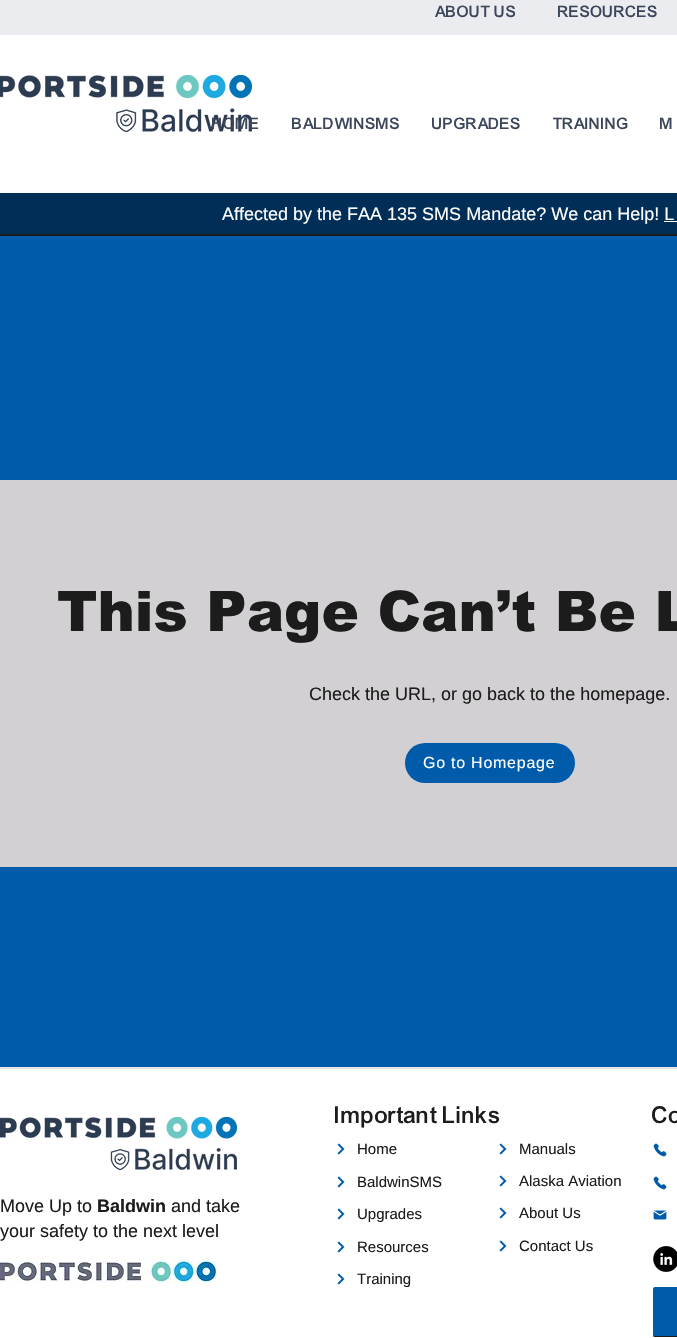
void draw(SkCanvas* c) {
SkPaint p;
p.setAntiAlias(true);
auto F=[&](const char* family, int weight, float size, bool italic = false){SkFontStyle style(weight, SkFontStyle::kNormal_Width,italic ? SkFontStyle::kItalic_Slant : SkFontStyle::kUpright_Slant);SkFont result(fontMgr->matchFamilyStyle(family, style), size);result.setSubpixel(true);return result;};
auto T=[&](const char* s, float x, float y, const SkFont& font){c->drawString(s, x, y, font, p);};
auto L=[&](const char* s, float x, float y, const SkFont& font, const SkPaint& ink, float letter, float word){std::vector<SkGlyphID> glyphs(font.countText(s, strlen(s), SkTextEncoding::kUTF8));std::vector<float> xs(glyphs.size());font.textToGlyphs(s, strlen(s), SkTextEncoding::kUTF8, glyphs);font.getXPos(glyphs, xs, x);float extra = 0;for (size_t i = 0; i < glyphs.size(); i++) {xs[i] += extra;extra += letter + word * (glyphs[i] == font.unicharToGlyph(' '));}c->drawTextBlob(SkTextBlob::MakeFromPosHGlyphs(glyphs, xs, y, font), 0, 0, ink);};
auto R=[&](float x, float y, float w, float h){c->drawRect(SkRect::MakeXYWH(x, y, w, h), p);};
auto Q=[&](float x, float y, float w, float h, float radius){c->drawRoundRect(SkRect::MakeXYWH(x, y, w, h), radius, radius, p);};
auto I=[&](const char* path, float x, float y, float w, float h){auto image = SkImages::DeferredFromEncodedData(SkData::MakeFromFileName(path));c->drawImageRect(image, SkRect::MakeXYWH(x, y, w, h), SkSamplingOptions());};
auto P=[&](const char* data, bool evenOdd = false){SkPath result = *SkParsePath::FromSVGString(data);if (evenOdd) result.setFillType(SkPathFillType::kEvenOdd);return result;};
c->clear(0xff005cab);
p.setColor(0xffebecef);
R(0,0,677,35);
auto f1 = F("Arial",500,17);
p.setColor(0xff3c465b);
T("ABOUT US",435,17,f1);
T("RESOURCES",558,17,f1);
p.setColor(0xffffffff);
R(0,35,677,158);
I("1.png",0,75,252,57);
p.setColor(0xff3c465b);
T("HOME",212,129,f1);
T("BALDWINSMS",292,129,f1);
T("UPGRADES",432,129,f1);
T("TRAINING",553,129,f1);
T("M",660,129,f1);
p.setColor(0xff002e56);
R(0,193,677,41);
auto f2 = F("Liberation Sans",400,18);
p.setColor(0xffffffff);
T("Affected by the FAA 135 SMS Mandate? We can Help! L",222,220,f2);
R(664,221,13,1);
p.setColor(0xff1d1c1d);
R(0,234,677,2);
p.setColor(0xffd2d0d2);
R(0,480,677,387);
auto f3 = F("arial",900,56);
p.setColor(0xff1d1c1d);
T("This Page Can’t Be L",57,631,f3);
T("Check the URL, or go back to the homepage.",309,700,f2);
p.setColor(0xff005cab);
Q(405,743,170,40,20);
auto f4 = F("Liberation Sans",400,16);
p.setColor(0xffffffff);
L("Go to Homepage",423,768,f4,p,.75,0);
R(0,1069,677,269);
p.setColor(0xffe6e6e6);
R(0,1067,677,2);
auto f5 = F("Arial",500,25);
p.setColor(0xff1d1c1d);
T("Important Links",335,1123,f5);
I("2.png",337,1143,8,12);
auto f6 = F("Liberation Sans",400,15);
T("Home",357,1154,f6);
I("2.png",337,1176,8,12);
T("BaldwinSMS",357,1187,f6);
I("2.png",337,1208,8,12);
T("Upgrades",357,1219,f6);
I("2.png",337,1241,8,12);
T("Resources",357,1252,f6);
I("2.png",337,1273,8,12);
T("Training",357,1284,f6);
I("2.png",499,1143,8,12);
T("Manuals",519,1154,f6);
I("2.png",499,1175,8,12);
T("Alaska Aviation",519,1186,f6);
I("2.png",499,1207,8,12);
T("About Us",519,1218,f6);
I("2.png",499,1240,8,12);
T("Contact Us",519,1251,f6);
T("Co",652,1123,f5);
I("3.png",653,1143,14,14);
I("3.png",653,1176,14,14);
I("4.png",653,1210,14,10);
I("5.png",653,1246,24,26);
p.setColor(0xff005cab);
Q(653,1287,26,50,2);
p.setColor(0xff1d1c1d);
c->drawPath(P("M653 1334c0 1 0 3 2 3h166c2 0 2-2 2-3c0 1-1 2-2 2h-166c-1 0-2-1-2-2z"),p);
I("6.png",0,1117,237,53);
T("Move Up to",0,1212,f2);
auto f7 = F("Liberation Sans",700,18);
T("Baldwin",97,1212,f7);
T("and take",171,1212,f2);
T("your safety to the next level",0,1237,f2);
I("7.png",0,1257,216,26);
}
